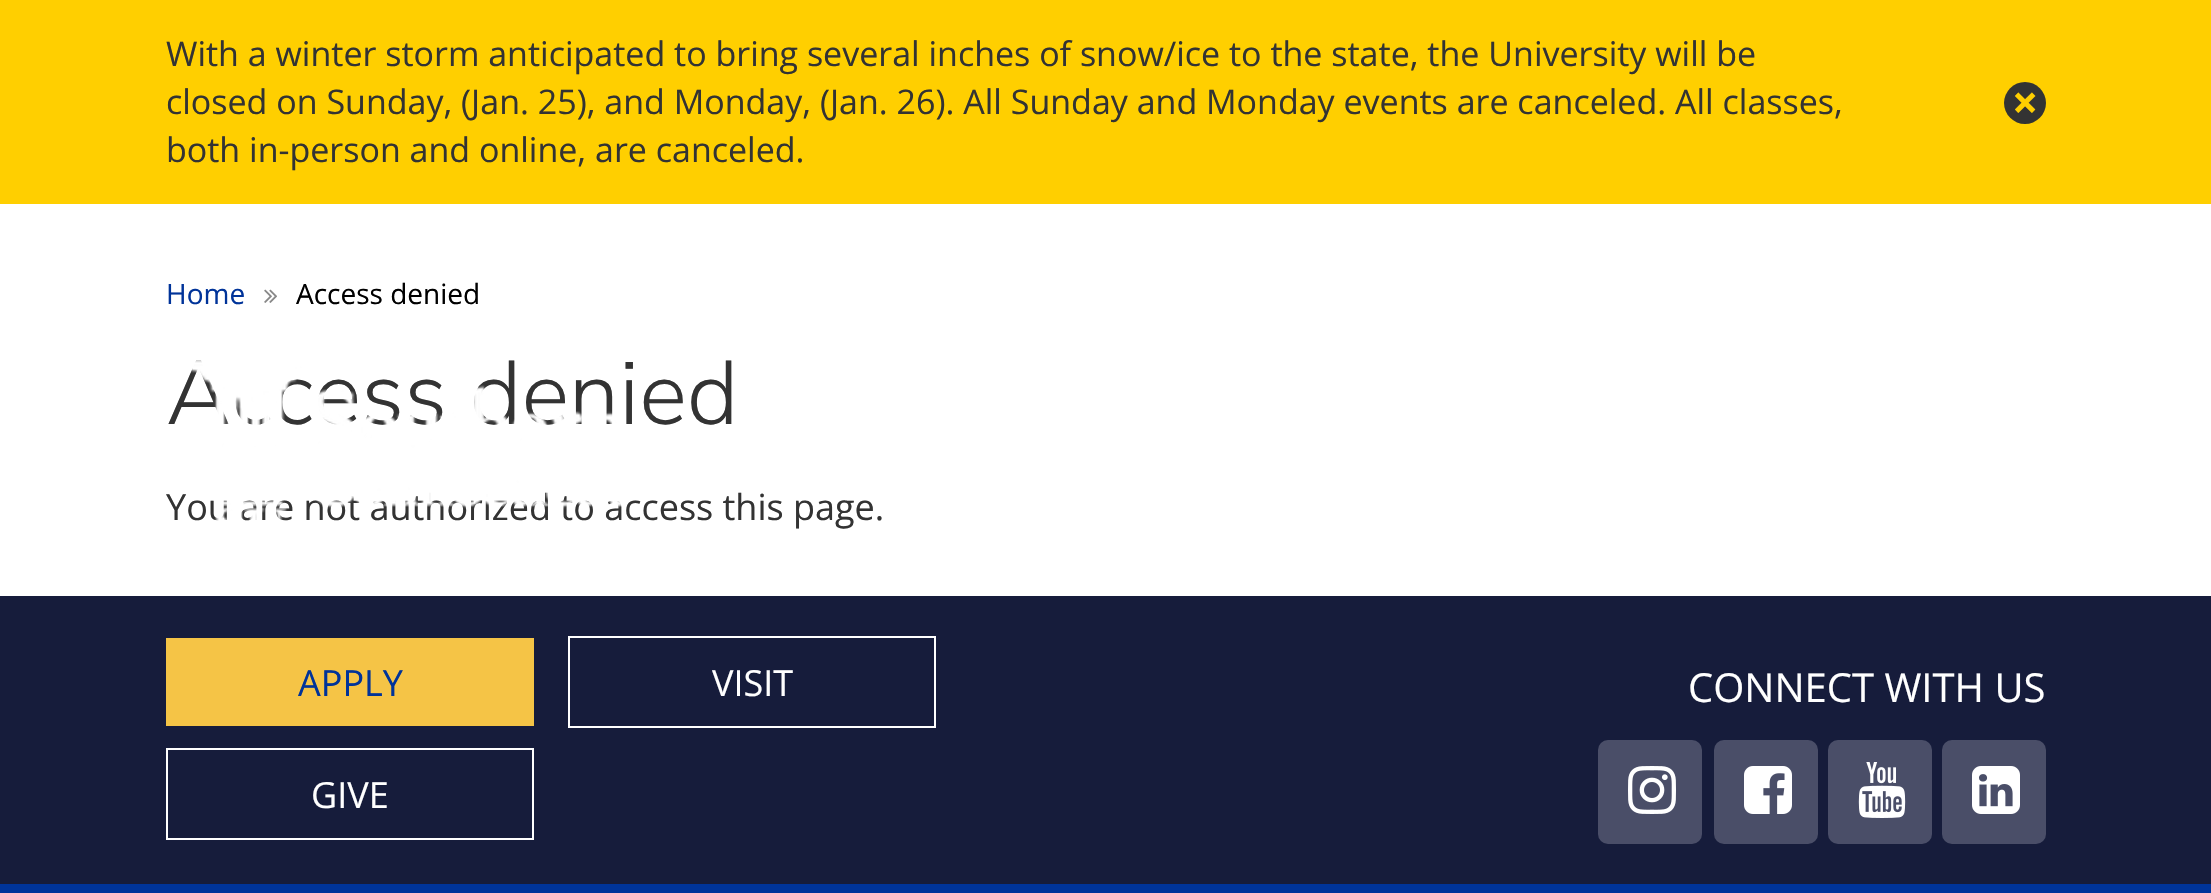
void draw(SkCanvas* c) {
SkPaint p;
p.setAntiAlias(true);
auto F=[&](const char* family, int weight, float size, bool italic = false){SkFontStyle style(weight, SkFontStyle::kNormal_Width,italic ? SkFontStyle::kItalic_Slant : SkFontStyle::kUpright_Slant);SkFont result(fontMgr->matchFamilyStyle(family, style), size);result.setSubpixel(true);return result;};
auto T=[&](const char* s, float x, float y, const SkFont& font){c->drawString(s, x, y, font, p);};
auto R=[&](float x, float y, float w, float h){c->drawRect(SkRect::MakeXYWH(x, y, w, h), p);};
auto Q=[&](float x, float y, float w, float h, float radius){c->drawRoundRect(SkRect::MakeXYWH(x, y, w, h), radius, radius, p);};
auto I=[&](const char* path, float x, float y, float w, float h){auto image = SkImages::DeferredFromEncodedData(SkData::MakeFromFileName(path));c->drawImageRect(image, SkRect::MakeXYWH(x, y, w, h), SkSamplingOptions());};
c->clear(0xffffffff);
p.setColor(0xffffcf00);
R(0,0,2211,204);
auto f1 = F("Open Sans",400,34);
p.setColor(0xff333333);
T("With a winter storm anticipated to bring several inches of snow/ice to the state, the University will be",166,66,f1);
T("closed on Sunday, (Jan. 25), and Monday, (Jan. 26). All Sunday and Monday events are canceled. All classes,",166,114,f1);
T("both in-person and online, are canceled.",166,162,f1);
c->drawCircle(2025,103,21,p);
auto f2 = F("Open Sans",700,46);
p.setColor(0xffffcf00);
T("×",2012,119,f2);
auto f3 = F("Open Sans",400,28);
p.setColor(0xff003399);
T("Home",166,304,f3);
I("1.png",264,289,13,14);
p.setColor(0xff000000);
T("Access denied",296,304,f3);
auto f4 = F("Nunito Sans",300,90);
p.setColor(0xff333333);
T("Access denied",166,424,f4);
auto f5 = F("Open Sans",400,36);
T("You are not authorized to access this page.",166,520,f5);
I("2.png",191,360,431,161);
p.setColor(0xff161c3b);
R(0,596,2211,288);
p.setColor(0xfff5c446);
R(166,638,368,88);
p.setColor(0xff003399);
T("APPLY",298,696,f5);
p.setStroke(true);
p.setStrokeWidth(2);
p.setColor(0xffffffff);
c->drawRect(SkRect::MakeXYWH(569,637,366,90),p);
p.setStroke(false);
T("VISIT",712,696,f5);
p.setStroke(true);
c->drawRect(SkRect::MakeXYWH(167,749,366,90),p);
p.setStroke(false);
T("GIVE",311,808,f5);
auto f6 = F("Open Sans",400,40);
T("CONNECT WITH US",1688,702,f6);
p.setColor(0xff4a4e68);
Q(1598,740,104,104,10);
I("3.png",1628,766,48,48);
Q(1714,740,104,104,10);
I("4.png",1744,766,48,48);
Q(1828,740,104,104,10);
I("5.png",1858,762,48,56);
Q(1942,740,104,104,10);
I("6.png",1972,766,48,48);
p.setColor(0xff00349a);
R(0,884,2211,9);
}
